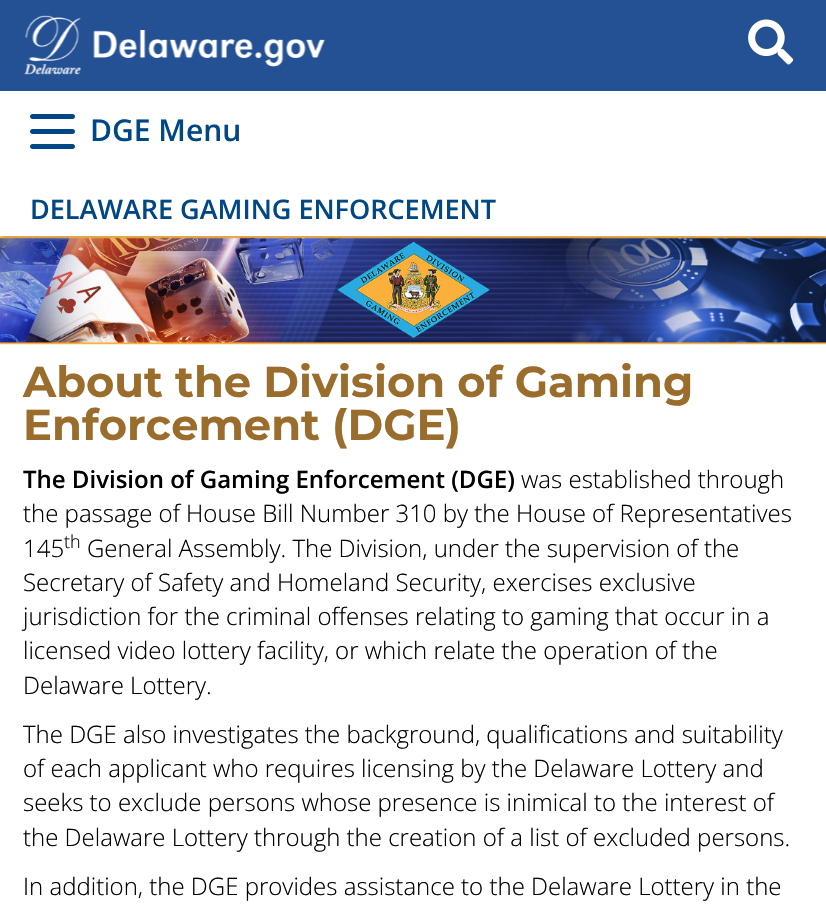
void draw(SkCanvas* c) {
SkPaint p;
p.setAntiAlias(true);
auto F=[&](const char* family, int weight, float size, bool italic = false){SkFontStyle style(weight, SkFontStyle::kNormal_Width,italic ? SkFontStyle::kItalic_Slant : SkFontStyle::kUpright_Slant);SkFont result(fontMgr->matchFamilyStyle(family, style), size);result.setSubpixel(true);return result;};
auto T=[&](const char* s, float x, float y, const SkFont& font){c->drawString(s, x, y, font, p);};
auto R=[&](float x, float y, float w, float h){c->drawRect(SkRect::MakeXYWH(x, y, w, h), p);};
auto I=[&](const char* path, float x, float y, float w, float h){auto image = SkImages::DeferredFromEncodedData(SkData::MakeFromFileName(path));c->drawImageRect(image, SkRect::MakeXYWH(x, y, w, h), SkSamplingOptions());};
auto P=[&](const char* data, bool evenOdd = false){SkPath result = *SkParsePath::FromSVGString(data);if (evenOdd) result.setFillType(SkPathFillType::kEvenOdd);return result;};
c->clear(0xffffffff);
I("4.png",0,236,826,109);
p.setColor(0x4d000000);
p.setMaskFilter(SkMaskFilter::MakeBlur(kNormal_SkBlurStyle, 1.5));
c->drawRect(SkRect::MakeXYWH(3,96,821,140),p);
p.setMaskFilter(nullptr);
p.setColor(0xff245194);
R(0,0,826,91);
I("1.png",24,15,57,60);
I("2.png",93,30,233,37);
I("3.png",748,19,46,46);
p.setColor(0xffffffff);
R(0,93,826,143);
p.setColor(0xff004785);
c->drawPath(P("M32.5 114h20.5v5h-20.5c-1.5 0-2.5-1-2.5-2.5c0-1.5 1-2.5 2.5-2.5z"),p);
c->drawPath(P("M53 114h19.5c1.5 0 2.5 1 2.5 2.5c0 1.5-1 2.5-2.5 2.5h-19.5z"),p);
c->drawPath(P("M32.5 129h20.5v5h-20.5c-1.5 0-2.5-1-2.5-2.5c0-1.5 1-2.5 2.5-2.5z"),p);
c->drawPath(P("M53 129h19.5c1.5 0 2.5 1 2.5 2.5c0 1.5-1 2.5-2.5 2.5h-19.5z"),p);
c->drawPath(P("M32.5 144h20.5v5h-20.5c-1.5 0-2.5-1-2.5-2.5c0-1.5 1-2.5 2.5-2.5z"),p);
c->drawPath(P("M53 144h19.5c1.5 0 2.5 1 2.5 2.5c0 1.5-1 2.5-2.5 2.5h-19.5z"),p);
auto f1 = F("Open Sans",600,30);
T("DGE Menu",90,141,f1);
auto f2 = F("Open Sans",600,27);
T("DELAWARE GAMING ENFORCEMENT",30,219,f2);
auto f3 = F("Montserrat",700,43.25);
p.setColor(0xff9b6d2c);
T("About the Division of Gaming",23,397,f3);
T("Enforcement (DGE)",23,440,f3);
auto f4 = F("Open Sans",600,24);
p.setColor(0xff000000);
T("The Division of Gaming Enforcement (DGE)",23,488,f4);
auto f5 = F("Open Sans",300,24);
T("was established through",521,488,f5);
T("the passage of House Bill Number 310 by the House of Representatives",23,522,f5);
T("145",23,557,f5);
auto f6 = F("Open Sans",300,18);
T("th",64,548,f6);
T("General Assembly. The Division, under the supervision of the",87,557,f5);
T("Secretary of Safety and Homeland Security, exercises exclusive",23,591,f5);
T("jurisdiction for the criminal offenses relating to gaming that occur in a",23,625,f5);
T("licensed video lottery facility, or which relate the operation of the",23,659,f5);
T("Delaware Lottery.",23,694,f5);
T("The DGE also investigates the background, qualifications and suitability",23,743,f5);
T("of each applicant who requires licensing by the Delaware Lottery and",23,777,f5);
T("seeks to exclude persons whose presence is inimical to the interest of",23,811,f5);
T("the Delaware Lottery through the creation of a list of excluded persons.",23,846,f5);
T("In addition, the DGE provides assistance to the Delaware Lottery in the",23,895,f5);
}
